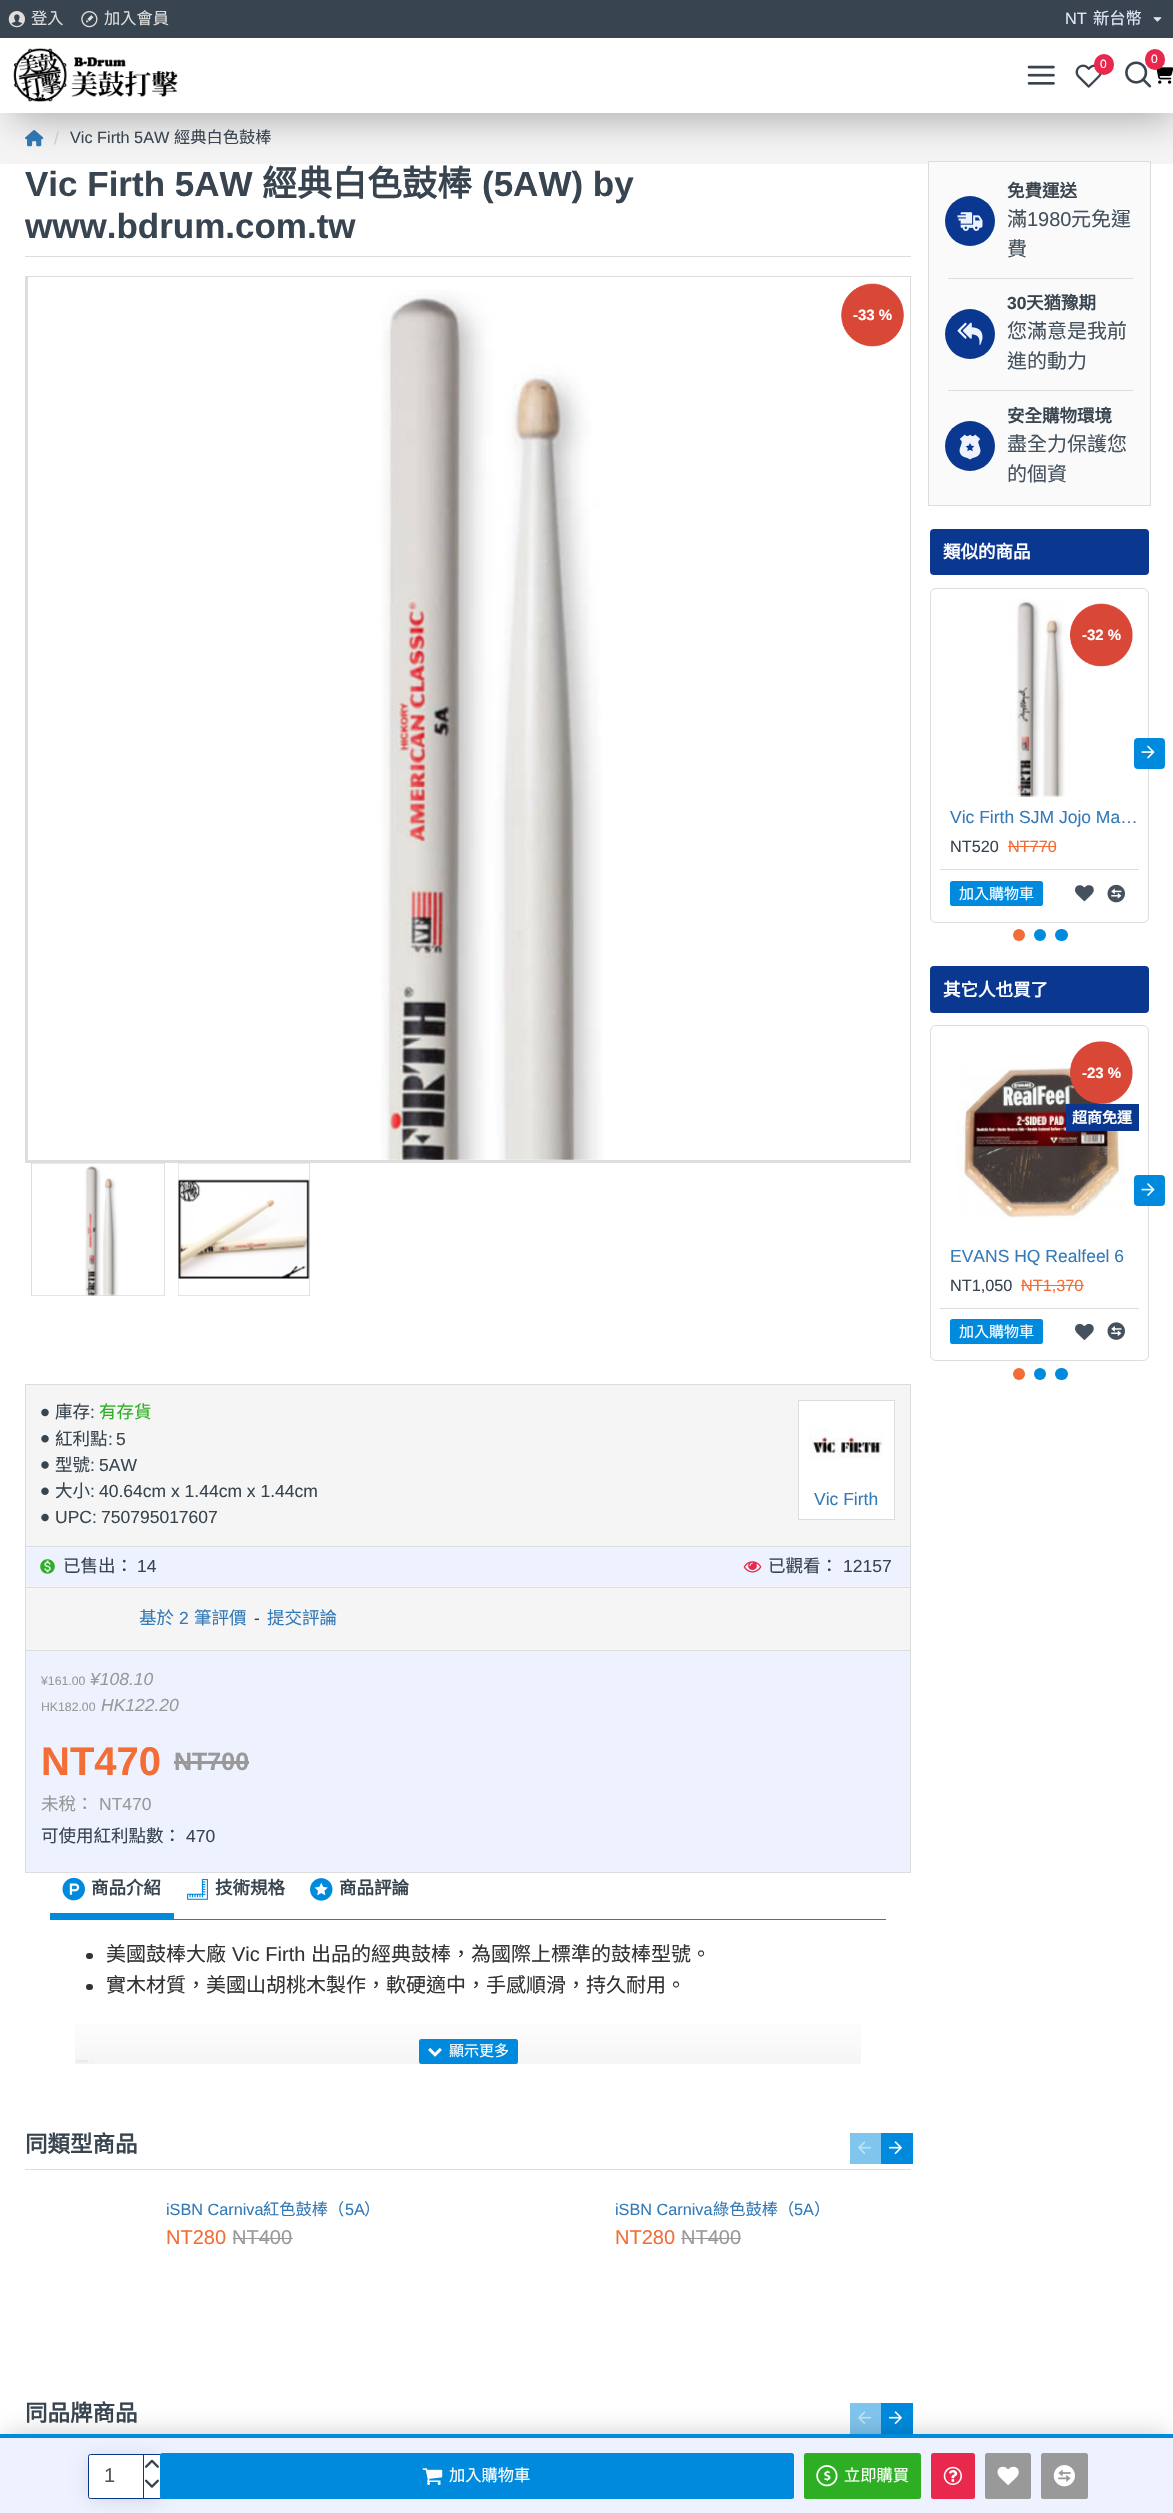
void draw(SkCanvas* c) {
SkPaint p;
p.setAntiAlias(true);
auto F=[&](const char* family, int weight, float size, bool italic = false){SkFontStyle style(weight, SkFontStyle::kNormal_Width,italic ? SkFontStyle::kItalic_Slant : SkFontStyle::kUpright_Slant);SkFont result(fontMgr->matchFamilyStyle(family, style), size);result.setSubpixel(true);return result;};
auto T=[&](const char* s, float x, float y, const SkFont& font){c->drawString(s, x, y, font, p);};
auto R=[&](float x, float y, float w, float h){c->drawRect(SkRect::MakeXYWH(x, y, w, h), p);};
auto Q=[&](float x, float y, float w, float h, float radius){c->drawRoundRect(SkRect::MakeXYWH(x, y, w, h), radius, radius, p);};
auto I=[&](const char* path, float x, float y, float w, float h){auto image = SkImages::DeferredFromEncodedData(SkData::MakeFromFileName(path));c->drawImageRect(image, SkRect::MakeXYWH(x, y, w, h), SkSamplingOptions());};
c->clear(0xffffffff);
p.setColor(0xfff5f5f5);
R(0,113,1173,51);
I("9.png",25,130,19,17);
p.setColor(0xfffafafa);
c->drawRect(SkRect::MakeXYWH(928.5,161.5,222,344),p);
p.setStroke(true);
p.setStrokeWidth(1);
p.setColor(0xffdddddd);
c->drawRect(SkRect::MakeXYWH(928.5,161.5,222,344),p);
p.setStroke(false);
p.setColor(0x4d000000);
p.setMaskFilter(SkMaskFilter::MakeBlur(kNormal_SkBlurStyle, 19));
c->drawRect(SkRect::MakeXYWH(13,56,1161,63),p);
p.setMaskFilter(nullptr);
p.setColor(0xff38444f);
R(0,0,1173,38);
I("1.png",8,11,17,17);
auto f1 = F("Noto Sans CJK TC",400,16.25);
p.setColor(0xffdddddd);
T("登入",31,24,f1);
I("2.png",81,11,17,17);
T("加入會員",104,24,f1);
auto f2 = F("Liberation Sans",400,16.25);
p.setColor(0xffdfe7f7);
T("NT",1065,24,f2);
T("新台幣",1093,24,f1);
I("3.png",1153,17,9,5);
p.setColor(0xffffffff);
R(0,38,1173,75);
I("4.png",13,48,165,54);
I("5.png",1027,65,28,20);
I("6.png",1075,64,27,24);
p.setColor(0xffe8284d);
Q(1094,54,20,21,10);
auto f3 = F("Liberation Sans",400,12);
p.setColor(0xffffffff);
T("0",1100,68,f3);
I("7.png",1125,61,27,27);
I("8.png",1156,67,17,17);
p.setColor(0xffe8284d);
Q(1145,49,20,21,10);
p.setColor(0xffffffff);
T("0",1151,63,f3);
auto f4 = F("Liberation Sans",400,17.5);
p.setColor(0xffcccccc);
T("/",54,144,f4);
p.setColor(0xff38444f);
T("Vic Firth 5AW",70,143,f2);
T("經典白色鼓棒",174,143,f1);
p.setColor(0xffdddddd);
R(25,256,886,1);
auto f5 = F("Liberation Sans",700,35);
p.setColor(0xff38444f);
T("Vic Firth 5AW",25,196,f5);
auto f6 = F("Noto Sans CJK TC",700,35);
T("經典白色鼓棒",262,196,f6);
T("(5AW) by",482,196,f5);
T("www.bdrum.com.tw",25,238,f5);
p.setColor(0xffdddddd);
R(25,276,886,1);
R(910,276,1,887);
R(25,1160,886,3);
R(25,276,3,887);
I("10.png",381,290,222,870);
I("11.png",841,283,63,64);
auto f7 = F("Liberation Sans",700,15);
p.setColor(0xffffffff);
T("-33 %",853,320,f7);
p.setStroke(true);
p.setColor(0xffdddddd);
c->drawRect(SkRect::MakeXYWH(31.5,1163.5,133,132),p);
I("12.png",32,1163,133,133);
c->drawRect(SkRect::MakeXYWH(178.5,1163.5,131,132),p);
I("13.png",178,1163,132,133);
p.setStroke(false);
p.setColor(0xfff5f5f5);
R(26,1588,884,62);
p.setStroke(true);
p.setColor(0xffdddddd);
c->drawRect(SkRect::MakeXYWH(25.5,1586.5,885,64),p);
p.setStroke(false);
p.setColor(0xfff5f5f5);
c->drawRect(SkRect::MakeXYWH(25.5,1384.5,885,203),p);
p.setStroke(true);
p.setColor(0xffdddddd);
c->drawRect(SkRect::MakeXYWH(25.5,1384.5,885,203),p);
I("14.png",41,1408,8,9);
auto f8 = F("Noto Sans CJK TC",400,17.5);
p.setStroke(false);
p.setColor(0xff38444f);
T("庫存",55,1418,f8);
T(":",90,1418,f4);
p.setColor(0xff2eaf23);
T("有存貨",99,1418,f8);
I("15.png",41,1435,8,8);
p.setColor(0xff38444f);
T("紅利點",55,1445,f8);
T(":",108,1445,f4);
T("5",116,1445,f4);
I("16.png",41,1461,8,8);
T("型號",55,1471,f8);
T(":",90,1471,f4);
T("5AW",99,1471,f4);
I("17.png",41,1487,8,8);
T("大小",55,1497,f8);
T(":",90,1497,f4);
T("40.64cm x 1.44cm x 1.44cm",99,1497,f4);
I("14.png",41,1513,8,9);
T("UPC:",55,1523,f4);
T("750795017607",101,1523,f4);
p.setColor(0xffffffff);
c->drawRect(SkRect::MakeXYWH(798.5,1400.5,96,119),p);
p.setStroke(true);
p.setColor(0xffdddddd);
c->drawRect(SkRect::MakeXYWH(798.5,1400.5,96,119),p);
I("18.png",809,1428,74,30);
p.setStroke(false);
p.setColor(0xff337ab7);
T("Vic Firth",814,1505,f4);
p.setColor(0xffedf2fe);
R(26,1548,884,38);
p.setColor(0xffdddddd);
R(26,1546,884,1);
I("19.png",40,1559,15,15);
p.setColor(0xff38444f);
T("已售出：",63,1572,f8);
T("14",137,1572,f4);
I("20.png",743,1561,19,12);
T("已觀看：",768,1572,f8);
T("12157",843,1572,f4);
p.setColor(0xff337ab7);
T("基於",139,1624,f8);
T("2",179,1624,f4);
T("筆評價",194,1624,f8);
p.setColor(0xff38444f);
T("-",254,1624,f4);
p.setColor(0xff337ab7);
T("提交評論",267,1624,f8);
p.setColor(0xffedf2fe);
c->drawRect(SkRect::MakeXYWH(25.5,1650.5,885,222),p);
p.setStroke(true);
p.setColor(0xffdddddd);
c->drawRect(SkRect::MakeXYWH(25.5,1650.5,885,222),p);
auto f9 = F("Liberation Sans",400,12.25);
p.setStroke(false);
p.setColor(0xff999999);
T("¥161.00",41,1685,f9);
auto f10 = F("Liberation Sans",400,17.5,true);
T("¥108.10",90,1685,f10);
T("HK182.00",41,1711,f9);
T("HK122.20",101,1711,f10);
auto f11 = F("Liberation Sans",700,40);
p.setColor(0xfff36d37);
T("NT470",41,1775,f11);
auto f12 = F("Liberation Sans",700,25);
p.setColor(0xff999999);
T("NT700",174,1770,f12);
R(174,1761,75,3);
T("未稅：",41,1810,f8);
T("NT470",99,1810,f4);
p.setColor(0xff38444f);
T("可使用紅利點數：",41,1842,f8);
T("470",186,1842,f4);
p.setColor(0xff80c5ee);
R(850,2403,31,31);
I("33.png",858,2411,13,14);
p.setColor(0xff008add);
R(881,2403,32,31);
I("34.png",889,2411,14,14);
p.setColor(0x33000000);
p.setMaskFilter(SkMaskFilter::MakeBlur(kNormal_SkBlurStyle, 12.5));
c->drawRect(SkRect::MakeXYWH(6,2434,1162,67),p);
p.setMaskFilter(nullptr);
p.setColor(0xffedf2fe);
R(0,2438,1173,75);
p.setColor(0xff008add);
R(0,2434,1173,4);
p.setStroke(true);
p.setColor(0xff0a378f);
c->drawRoundRect(SkRect::MakeXYWH(88.5,2454.5,74,44),2,2,p);
p.setStroke(false);
p.setColor(0x26000000);
p.setMaskFilter(SkMaskFilter::MakeBlur(kNormal_SkBlurStyle, 9.5));
c->drawRect(SkRect::MakeXYWH(91,2460,68,38),p);
p.setMaskFilter(nullptr);
p.setColor(0xffffffff);
Q(89,2455,72,43,2.5);
auto f13 = F("Liberation Sans",400,20);
p.setColor(0xff555555);
T("1",104,2482,f13);
p.setColor(0xff0a378f);
R(143,2455,1,43);
I("21.png",144,2459,15,9);
I("22.png",144,2479,15,9);
p.setColor(0xff008add);
Q(160,2453,634,46,2.5);
I("23.png",422,2468,21,17);
p.setColor(0xffffffff);
T("加入購物車",449,2481,f1);
p.setColor(0xff2eaf23);
Q(804,2453,117,46,2.5);
I("24.png",816,2465,22,22);
p.setColor(0xffffffff);
T("立即購買",844,2481,f1);
p.setColor(0xffe8284d);
Q(931,2453,44,46,2.5);
I("25.png",943,2466,19,19);
p.setColor(0xff999999);
Q(985,2453,46,46,2.5);
I("26.png",997,2466,22,19);
Q(1041,2453,47,46,2.5);
I("27.png",1053,2465,22,22);
p.setColor(0xff008add);
R(50,1919,836,1);
R(50,1913,124,6);
I("28.png",62,1877,23,24);
auto f14 = F("Noto Sans CJK TC",700,17.5);
p.setColor(0xff38444f);
T("商品介紹",91,1894,f14);
I("29.png",187,1878,21,22);
T("技術規格",215,1894,f14);
I("30.png",310,1878,23,23);
T("商品評論",339,1894,f14);
p.setColor(0xff333333);
Q(86,1953,7,6,3);
auto f15 = F("Noto Sans CJK TC",400,20);
T("美國鼓棒大廠",106,1961,f15);
T("Vic Firth",232,1961,f13);
T("出品的經典鼓棒，為國際上標準的鼓棒型號。",311,1961,f15);
Q(86,1984,7,6,3);
T("實木材質，美國山胡桃木製作，軟硬適中，手感順滑，持久耐用。",106,1992,f15);
I("32.png",75,2060,19,4);
{
const SkColor colors[] = {0x00f5f5f5,0xfff5f5f5};
const float stops[] = {0,1};
const SkPoint ends[] = {{468,2014}, {468,2064}};
p.setShader(SkGradientShader::MakeLinear(ends, colors, stops, 2, SkTileMode::kClamp));
p.setAlpha(255);
}
R(75,2024,786,40);
p.setShader(nullptr);
p.setColor(0xff008add);
Q(419,2039,99,25,2.5);
I("31.png",428,2048,14,9);
auto f16 = F("Noto Sans CJK TC",400,15);
p.setColor(0xffffffff);
T("顯示更多",449,2056,f16);
p.setColor(0xffdddddd);
R(25,2169,886,1);
auto f17 = F("Noto Sans CJK TC",700,22.5);
p.setColor(0xff38444f);
T("同類型商品",25,2152,f17);
p.setColor(0xff80c5ee);
R(850,2133,31,31);
I("33.png",858,2141,13,14);
p.setColor(0xff008add);
R(881,2133,32,31);
I("34.png",889,2141,14,14);
p.setColor(0xff337ab7);
T("iSBN Carniva",166,2215,f2);
T("紅色鼓棒（",263,2215,f1);
T("5A",345,2215,f2);
T("）",364,2215,f1);
p.setColor(0xfff36d37);
T("NT280",166,2244,f13);
p.setColor(0xff999999);
T("NT400",232,2244,f13);
R(233,2238,60,1);
p.setColor(0xff337ab7);
T("iSBN Carniva",615,2215,f2);
T("綠色鼓棒（",713,2215,f1);
T("5A",794,2215,f2);
T("）",814,2215,f1);
p.setColor(0xfff36d37);
T("NT280",615,2244,f13);
p.setColor(0xff999999);
T("NT400",681,2244,f13);
R(681,2238,60,1);
p.setColor(0xff38444f);
T("同品牌商品",25,2421,f17);
p.setColor(0xffdddddd);
R(948,278,185,1);
p.setColor(0xff0a378f);
c->drawCircle(970,221,25,p);
I("35.png",957,212,26,19);
p.setColor(0xff38444f);
T("免費運送",1007,197,f14);
p.setColor(0xff45525e);
T("滿",1007,226,f15);
T("1980",1027,226,f13);
T("元免運",1071,226,f15);
T("費",1007,256,f15);
p.setColor(0xffdddddd);
R(948,390,185,1);
p.setColor(0xff0a378f);
c->drawCircle(970,334,25,p);
I("36.png",957,322,26,23);
auto f18 = F("Liberation Sans",700,17.5);
p.setColor(0xff38444f);
T("30",1007,309,f18);
T("天猶豫期",1026,309,f14);
p.setColor(0xff45525e);
T("您滿意是我前",1007,338,f15);
T("進的動力",1007,368,f15);
p.setColor(0xff0a378f);
c->drawCircle(970,446,25,p);
I("37.png",959,434,22,26);
p.setColor(0xff38444f);
T("安全購物環境",1007,422,f14);
p.setColor(0xff45525e);
T("盡全力保護您",1007,451,f15);
T("的個資",1007,481,f15);
p.setColor(0xff0a378f);
Q(930,529,219,46,4);
p.setColor(0xffffffff);
T("類似的商品",943,558,f14);
p.setStroke(true);
p.setColor(0xffdddddd);
c->drawRoundRect(SkRect::MakeXYWH(930.5,588.5,218,334),5.5,5.5,p);
I("38.png",1008,599,57,198);
I("39.png",1070,603,63,64);
p.setStroke(false);
p.setColor(0xffffffff);
T("-32 %",1082,640,f7);
p.setColor(0xff337ab7);
T("Vic Firth SJM Jojo Ma…",950,823,f4);
p.setColor(0xff38444f);
T("NT520",950,852,f2);
p.setColor(0xfff36d37);
T("NT770",1008,852,f2);
R(1008,846,48,1);
p.setColor(0xffdddddd);
R(940,869,199,1);
p.setColor(0xff008add);
Q(950,881,93,25,2.5);
p.setColor(0xffffffff);
T("加入購物車",959,899,f16);
I("40.png",1075,885,19,17);
I("41.png",1107,884,18,19);
p.setColor(0xff008add);
Q(1134,738,31,31,4);
I("42.png",1141,745,14,14);
p.setColor(0xfff36d37);
c->drawCircle(1019,935,6,p);
p.setColor(0xff008add);
c->drawCircle(1040,935,6,p);
Q(1055,929,13,12,6);
p.setColor(0xff0a378f);
Q(930,966,219,47,4);
p.setColor(0xffffffff);
T("其它人也買了",943,996,f14);
p.setStroke(true);
p.setColor(0xffdddddd);
c->drawRoundRect(SkRect::MakeXYWH(930.5,1025.5,218,335),5.5,5.5,p);
I("43.png",957,1067,167,152);
I("44.png",1070,1041,63,63);
p.setStroke(false);
p.setColor(0xffffffff);
T("-23 %",1082,1078,f7);
p.setColor(0xff0a378f);
R(1066,1104,73,27);
auto f19 = F("Noto Sans CJK TC",700,15);
p.setColor(0xffffffff);
T("超商免運",1072,1123,f19);
p.setColor(0xff337ab7);
T("EVANS HQ Realfeel 6",950,1262,f4);
p.setColor(0xff38444f);
T("NT1,050",950,1291,f2);
p.setColor(0xfff36d37);
T("NT1,370",1021,1291,f2);
R(1021,1285,63,1);
p.setColor(0xffdddddd);
R(940,1308,199,1);
p.setColor(0xff008add);
Q(950,1319,93,25,2.5);
p.setColor(0xffffffff);
T("加入購物車",959,1337,f16);
I("45.png",1075,1323,19,17);
I("46.png",1107,1322,18,18);
p.setColor(0xff008add);
Q(1134,1175,31,31,4);
I("47.png",1141,1183,14,13);
p.setColor(0xfff36d37);
c->drawCircle(1019,1374,6,p);
p.setColor(0xff008add);
c->drawCircle(1040,1374,6,p);
Q(1055,1368,13,12,6);
}
